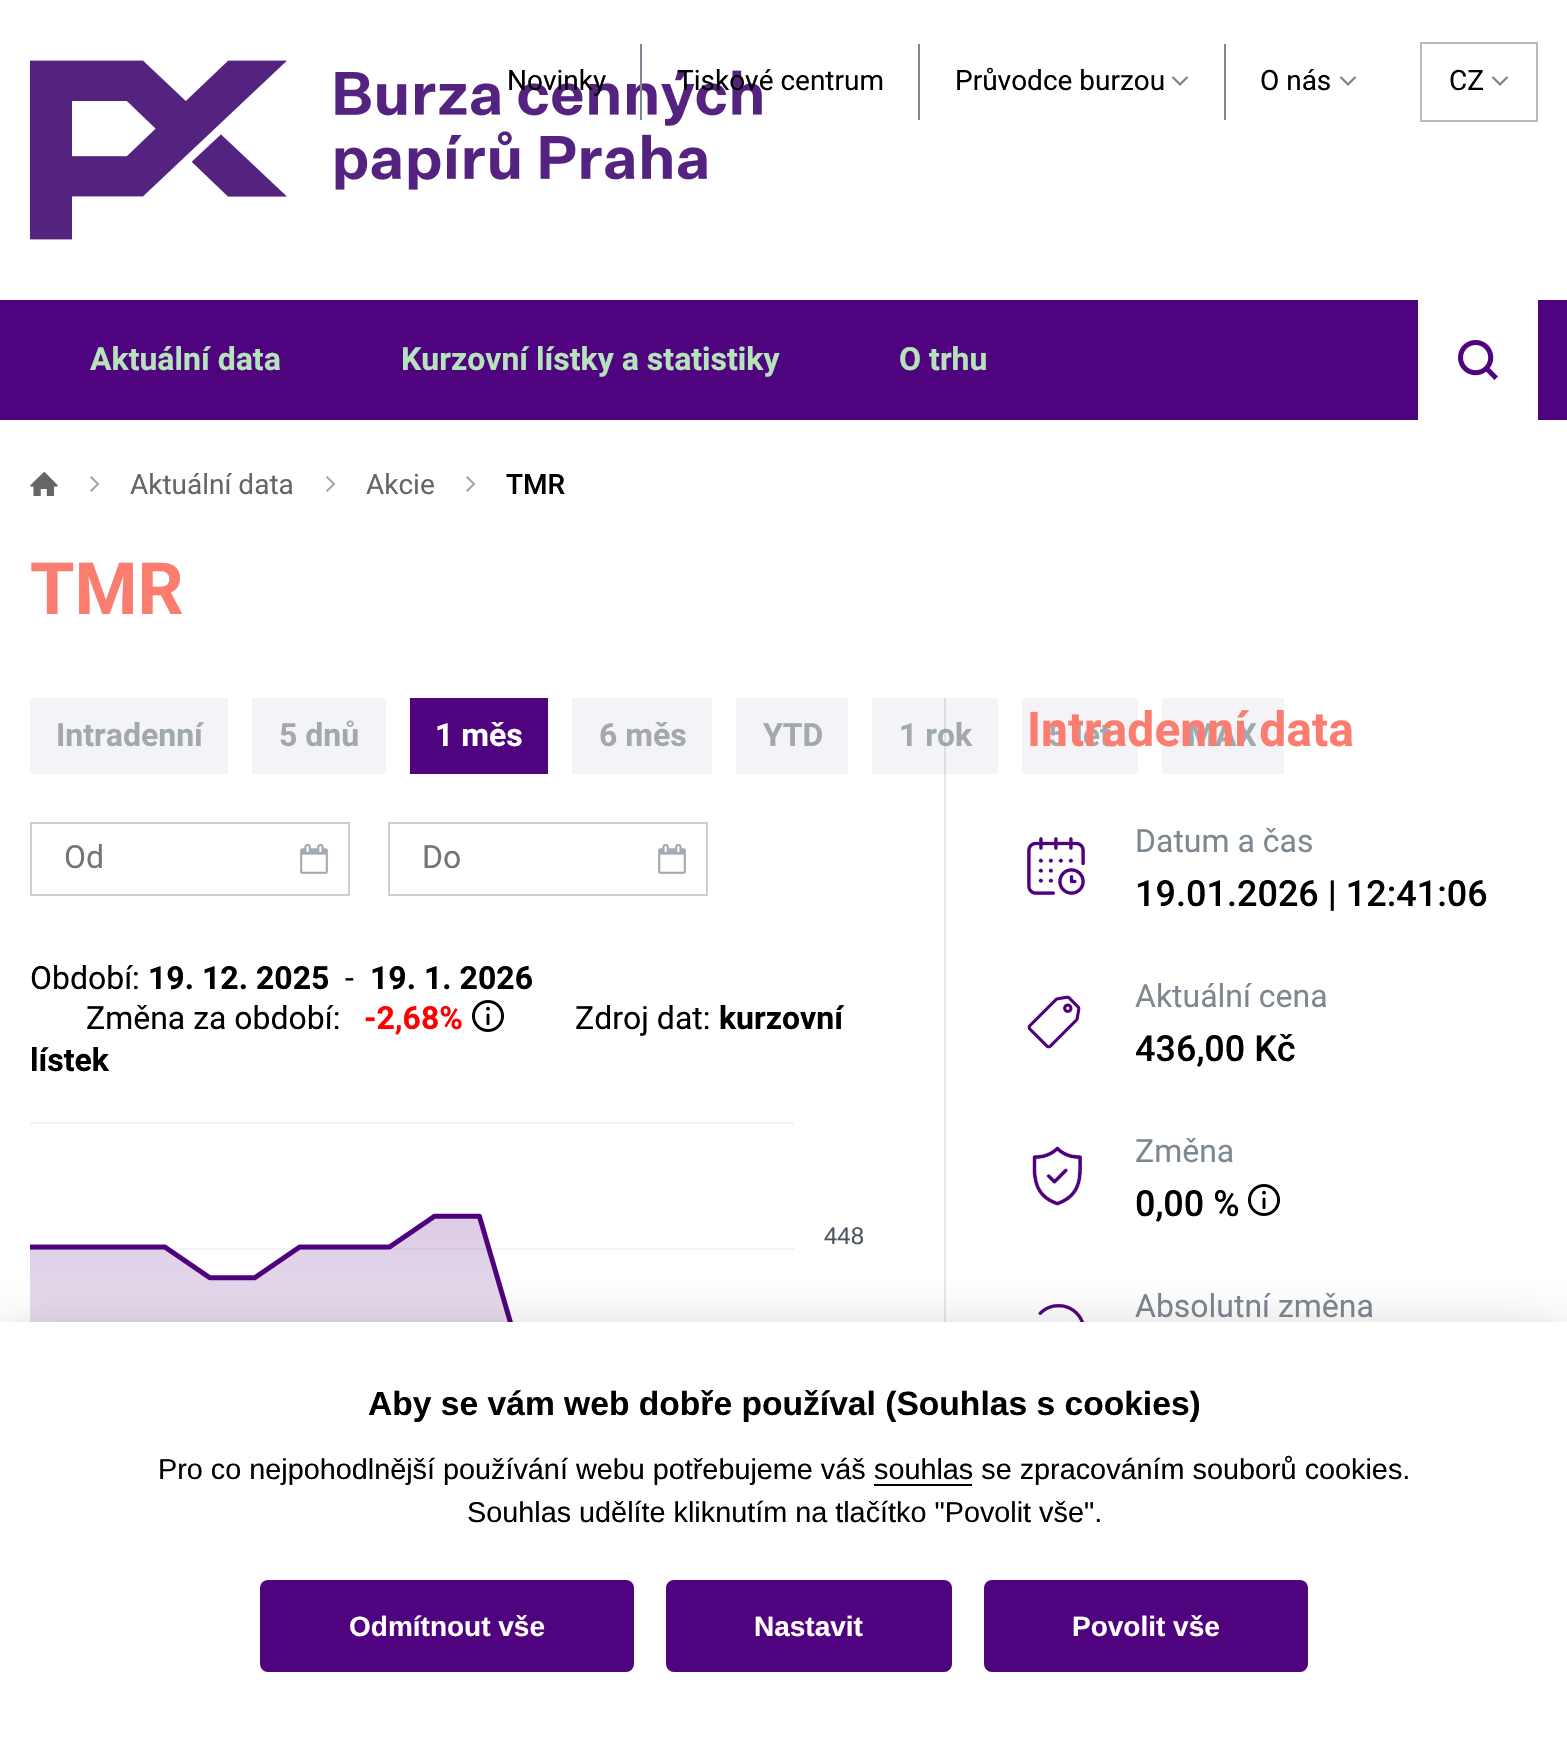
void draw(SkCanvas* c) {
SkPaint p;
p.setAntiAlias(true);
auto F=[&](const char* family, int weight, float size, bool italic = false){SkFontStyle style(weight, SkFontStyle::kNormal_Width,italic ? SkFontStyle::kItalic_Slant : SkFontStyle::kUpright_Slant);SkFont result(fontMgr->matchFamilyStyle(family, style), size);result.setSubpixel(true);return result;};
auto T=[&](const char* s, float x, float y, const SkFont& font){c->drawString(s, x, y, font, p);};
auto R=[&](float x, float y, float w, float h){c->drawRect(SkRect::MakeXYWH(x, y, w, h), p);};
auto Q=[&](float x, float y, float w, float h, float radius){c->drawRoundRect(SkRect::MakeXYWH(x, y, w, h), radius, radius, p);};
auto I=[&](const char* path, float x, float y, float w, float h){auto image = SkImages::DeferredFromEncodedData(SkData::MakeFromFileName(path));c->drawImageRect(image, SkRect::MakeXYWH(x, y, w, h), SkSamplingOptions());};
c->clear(0xffffffff);
I("1.png",30,60,732,180);
auto f1 = F("Roboto",400,28);
p.setColor(0xff000000);
T("Novinky",507,90,f1);
p.setColor(0xff7d8791);
R(640,44,2,76);
p.setColor(0xff000000);
T("Tiskové centrum",677,90,f1);
p.setColor(0xff7d8791);
R(918,44,2,76);
p.setColor(0xff000000);
T("Průvodce burzou",955,90,f1);
I("2.png",1172,76,16,10);
p.setColor(0xff7d8791);
R(1224,44,2,76);
p.setColor(0xff000000);
T("O nás",1260,90,f1);
I("2.png",1340,76,16,10);
p.setStroke(true);
p.setStrokeWidth(2);
p.setColor(0xffb4bac0);
c->drawRect(SkRect::MakeXYWH(1421,43,116,78),p);
p.setStroke(false);
p.setColor(0xff000000);
T("CZ",1449,90,f1);
I("2.png",1492,76,16,10);
p.setColor(0xff50037f);
R(0,300,1567,120);
auto f2 = F("Roboto",700,32);
p.setColor(0xffb5e3ba);
T("Aktuální data",90,370,f2);
T("Kurzovní lístky a statistiky",401,370,f2);
T("O trhu",899,370,f2);
p.setColor(0xffffffff);
R(1418,300,120,120);
I("3.png",1458,340,40,40);
I("4.png",30,472,28,24);
I("5.png",90,476,10,16);
p.setColor(0xff666666);
T("Aktuální data",130,494,f1);
I("5.png",326,476,10,16);
T("Akcie",366,494,f1);
I("5.png",466,476,10,16);
auto f3 = F("Roboto",500,28);
p.setColor(0xff000000);
T("TMR",506,494,f3);
auto f4 = F("Roboto",700,72);
p.setColor(0xfffa7d70);
T("TMR",30,614,f4);
p.setColor(0xfff4f4f8);
R(30,698,198,76);
p.setColor(0xffa1a8b0);
T("Intradenní",56,746,f2);
p.setColor(0xfff4f4f8);
R(252,698,134,76);
p.setColor(0xffa1a8b0);
T("5 dnů",279,746,f2);
p.setColor(0xff50037f);
R(410,698,138,76);
p.setColor(0xffffffff);
T("1 měs",435,746,f2);
p.setColor(0xfff4f4f8);
R(572,698,140,76);
p.setColor(0xffa1a8b0);
T("6 měs",599,746,f2);
p.setColor(0xfff4f4f8);
R(736,698,112,76);
p.setColor(0xffa1a8b0);
T("YTD",763,746,f2);
p.setColor(0xfff4f4f8);
R(872,698,126,76);
p.setColor(0xffa1a8b0);
T("1 rok",899,746,f2);
p.setColor(0xfff4f4f8);
R(1022,698,116,76);
p.setColor(0xffa1a8b0);
T("5 let",1048,746,f2);
p.setColor(0xfff4f4f8);
R(1162,698,122,76);
p.setColor(0xffa1a8b0);
T("MAX",1187,746,f2);
I("6.png",300,844,28,30);
p.setStroke(true);
p.setColor(0xffcbcfd3);
c->drawRect(SkRect::MakeXYWH(31,823,318,72),p);
auto f5 = F("Roboto",400,32);
p.setStroke(false);
p.setColor(0xff757575);
T("Od",64,868,f5);
I("6.png",658,844,28,30);
p.setStroke(true);
p.setColor(0xffcbcfd3);
c->drawRect(SkRect::MakeXYWH(389,823,318,72),p);
p.setStroke(false);
p.setColor(0xff757575);
T("Do",422,868,f5);
p.setColor(0xff000000);
T("Období:",30,989,f5);
T("19. 12. 2025",148,989,f2);
T("-",345,989,f5);
T("19. 1. 2026",370,989,f2);
T("Změna za období:",86,1029,f5);
p.setColor(0xffff0000);
T("-2,68%",364,1029,f2);
I("7.png",472,1000,32,32);
p.setColor(0xff000000);
T("Zdroj dat:",575,1029,f5);
T("kurzovní",719,1029,f2);
T("lístek",30,1071,f2);
I("8.png",30,1122,764,200);
auto f6 = F("Liberation Sans",400,24);
p.setColor(0xff475563);
T("448",824,1244,f6);
p.setColor(0x337d8791);
R(944,698,2,624);
auto f7 = F("Roboto",700,48);
p.setColor(0xfffa7d70);
T("Intradenní data",1027,746,f7);
I("9.png",1026,836,60,60);
p.setColor(0xff7d8791);
T("Datum a čas",1135,852,f5);
auto f8 = F("Roboto",500,36);
p.setColor(0xff000000);
T("19.01.2026 | 12:41:06",1135,906,f8);
I("10.png",1027,995,54,54);
p.setColor(0xff7d8791);
T("Aktuální cena",1135,1007,f5);
p.setColor(0xff000000);
T("436,00 Kč",1135,1061,f8);
I("11.png",1032,1146,50,60);
p.setColor(0xff7d8791);
T("Změna",1135,1162,f5);
p.setColor(0xff000000);
T("0,00 %",1135,1216,f8);
I("7.png",1248,1184,32,32);
I("12.png",1038,1304,46,18);
p.setColor(0xff7d8791);
T("Absolutní změna",1135,1317,f5);
p.setColor(0x47020203);
p.setMaskFilter(SkMaskFilter::MakeBlur(kNormal_SkBlurStyle, 30));
c->drawRect(SkRect::MakeXYWH(0,1342,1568,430),p);
p.setMaskFilter(nullptr);
p.setColor(0xffffffff);
R(0,1322,1567,429);
auto f9 = F("Liberation Sans",700,33.6);
p.setColor(0xff000000);
T("Aby se vám web dobře používal (Souhlas s cookies)",368,1415,f9);
auto f10 = F("Liberation Sans",400,28.8);
T("Pro co nejpohodlnější používání webu potřebujeme váš",158,1479,f10);
R(874,1484,98,2);
T("souhlas se zpracováním souborů cookies.",874,1479,f10);
T("Souhlas udělíte kliknutím na tlačítko \"Povolit vše\".",467,1522,f10);
p.setColor(0xff50037f);
Q(260,1580,374,92,8);
auto f11 = F("Liberation Sans",700,28);
p.setColor(0xffffffff);
T("Odmítnout vše",349,1636,f11);
p.setColor(0xff50037f);
Q(666,1580,286,92,8);
p.setColor(0xffffffff);
T("Nastavit",754,1636,f11);
p.setColor(0xff50037f);
Q(984,1580,324,92,8);
p.setColor(0xffffffff);
T("Povolit vše",1072,1636,f11);
}
